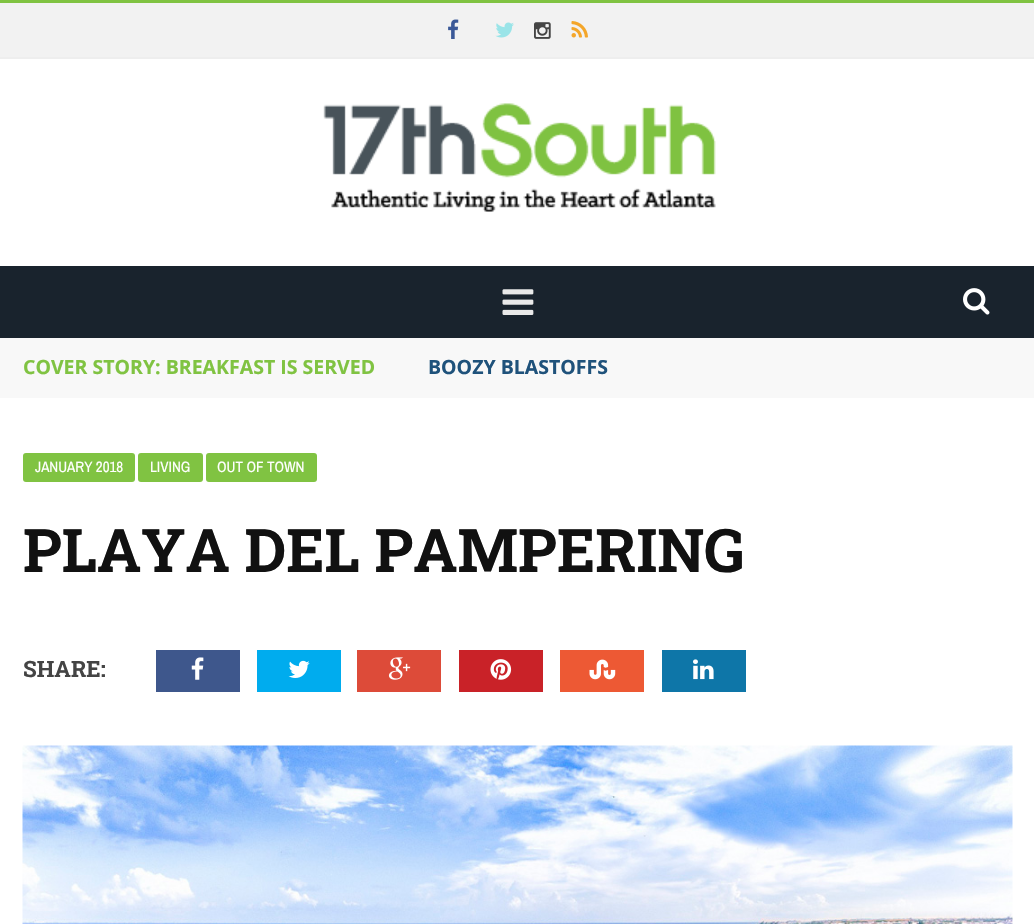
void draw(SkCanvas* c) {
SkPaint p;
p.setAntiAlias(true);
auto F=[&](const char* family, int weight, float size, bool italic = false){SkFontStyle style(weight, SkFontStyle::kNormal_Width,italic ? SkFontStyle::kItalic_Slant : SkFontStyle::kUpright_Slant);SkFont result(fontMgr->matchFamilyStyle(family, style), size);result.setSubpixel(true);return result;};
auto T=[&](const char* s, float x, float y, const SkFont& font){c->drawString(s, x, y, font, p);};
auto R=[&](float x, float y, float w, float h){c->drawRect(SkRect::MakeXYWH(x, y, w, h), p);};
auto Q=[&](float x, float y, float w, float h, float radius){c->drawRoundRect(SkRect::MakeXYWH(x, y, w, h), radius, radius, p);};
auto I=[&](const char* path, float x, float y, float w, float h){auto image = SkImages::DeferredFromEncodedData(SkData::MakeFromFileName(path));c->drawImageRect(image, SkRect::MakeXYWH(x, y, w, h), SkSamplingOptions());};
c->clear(0xffffffff);
p.setColor(0xfff2f2f2);
R(0,3,1034,54);
p.setColor(0xff80c342);
R(0,0,1034,3);
p.setColor(0xffeeeeee);
R(0,57,1034,2);
I("1.png",448,19,11,20);
I("2.png",495,22,19,16);
I("3.png",534,22,17,17);
I("4.png",571,21,17,17);
I("5.png",323,103,393,109);
p.setColor(0xff19232d);
R(0,266,1034,72);
I("6.png",502,289,32,26);
I("7.png",963,288,27,27);
p.setColor(0xfff8f8f8);
R(0,338,1034,60);
auto f1 = F("Open Sans",700,19.5);
p.setColor(0xff80c342);
T("COVER STORY: BREAKFAST IS SERVED",23,374,f1);
p.setColor(0xff1f527b);
T("BOOZY BLASTOFFS",428,374,f1);
p.setColor(0xff80c342);
Q(23,453,112,29,3);
auto f2 = F("Archivo Narrow",400,15);
p.setColor(0xffffffff);
T("JANUARY 2018",35,472,f2);
p.setColor(0xff80c342);
Q(138,453,65,29,3);
p.setColor(0xffffffff);
T("LIVING",150,472,f2);
p.setColor(0xff80c342);
Q(206,453,111,29,3);
p.setColor(0xffffffff);
T("OUT OF TOWN",217,472,f2);
auto f3 = F("Roboto Slab",700,60);
p.setColor(0xff111111);
T("PLAYA DEL PAMPERING",23,572,f3);
auto f4 = F("Roboto Slab",700,22.5);
p.setColor(0xff444444);
T("SHARE:",23,677,f4);
p.setColor(0xff3e578c);
R(156,650,84,42);
I("8.png",191,657,13,23);
p.setColor(0xff00acee);
R(257,650,84,42);
I("9.png",288,660,22,18);
p.setColor(0xffdd4b39);
R(357,650,84,42);
I("10.png",388,657,23,23);
p.setColor(0xffc92228);
R(459,650,84,42);
I("11.png",490,659,22,21);
p.setColor(0xffed5934);
R(560,650,84,42);
I("12.png",589,659,27,21);
p.setColor(0xff0e76a8);
R(662,650,84,42);
I("13.png",693,659,21,21);
I("14.png",22,745,991,179);
}
